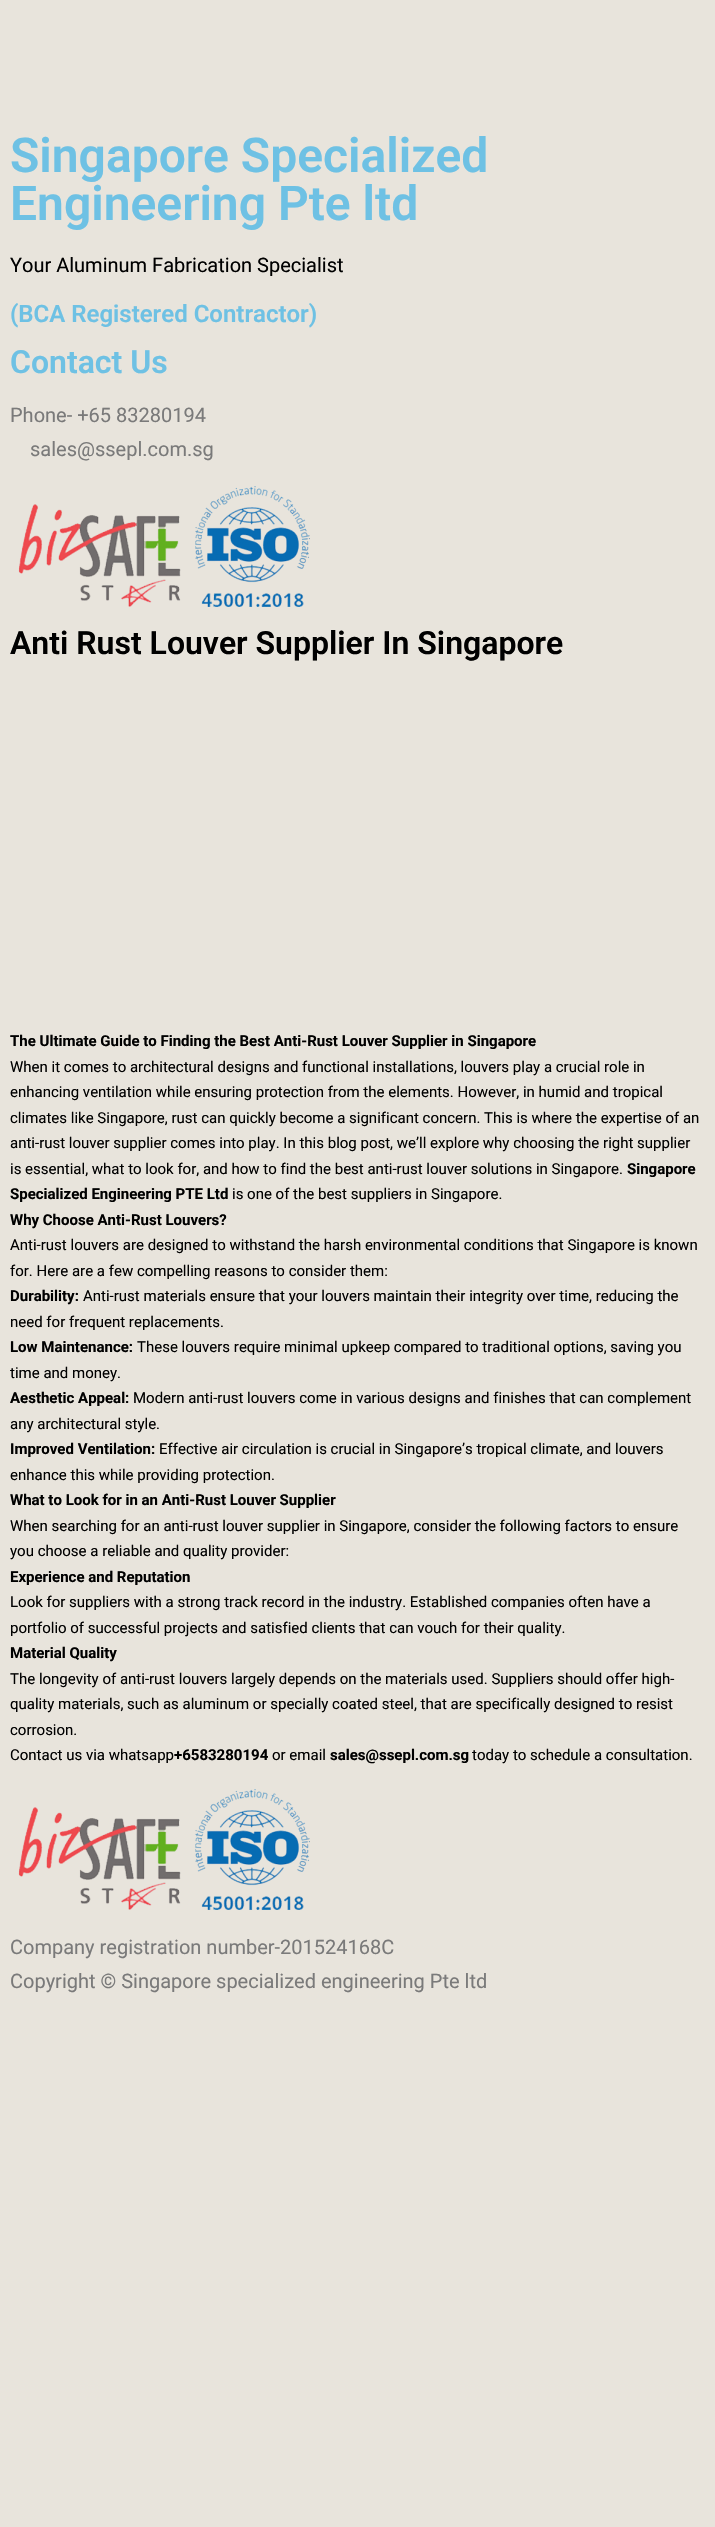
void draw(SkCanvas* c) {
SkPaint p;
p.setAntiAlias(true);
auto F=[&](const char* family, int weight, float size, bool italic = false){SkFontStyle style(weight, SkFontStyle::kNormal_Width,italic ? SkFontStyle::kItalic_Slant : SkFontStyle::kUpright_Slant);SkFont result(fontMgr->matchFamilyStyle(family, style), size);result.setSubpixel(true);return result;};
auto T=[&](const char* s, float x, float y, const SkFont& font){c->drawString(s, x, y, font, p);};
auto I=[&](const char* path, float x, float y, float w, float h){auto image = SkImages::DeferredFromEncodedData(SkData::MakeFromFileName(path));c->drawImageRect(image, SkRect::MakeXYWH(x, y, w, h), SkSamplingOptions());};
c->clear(0xffe8e4dc);
auto f1 = F("Roboto",600,48);
p.setColor(0xff6ec1e4);
T("Singapore Specialized",10,172,f1);
T("Engineering Pte ltd",10,220,f1);
auto f2 = F("Roboto",400,20);
p.setColor(0xff000000);
T("Your Aluminum Fabrication Specialist",10,272,f2);
auto f3 = F("Roboto",600,24);
p.setColor(0xff6ec1e4);
T("(BCA Registered Contractor)",10,322,f3);
auto f4 = F("Roboto",600,32);
T("Contact Us",10,373,f4);
p.setColor(0xff7a7a7a);
T("Phone- +65 83280194",10,422,f2);
T("sales@ssepl.com.sg",30,456,f2);
I("1.png",18,486,292,121);
p.setColor(0xff000000);
T("Anti Rust Louver Supplier In Singapore",10,654,f4);
auto f5 = F("Roboto",700,15);
T("The Ultimate Guide to Finding the Best Anti-Rust Louver Supplier in Singapore",10,1046,f5);
auto f6 = F("Roboto",400,15);
T("When it comes to architectural designs and functional installations, louvers play a crucial role in",10,1072,f6);
T("enhancing ventilation while ensuring protection from the elements. However, in humid and tropical",10,1097,f6);
T("climates like Singapore, rust can quickly become a significant concern. This is where the expertise of an",10,1123,f6);
T("anti-rust louver supplier comes into play. In this blog post, we’ll explore why choosing the right supplier",10,1148,f6);
T("is essential, what to look for, and how to find the best anti-rust louver solutions in Singapore.",10,1174,f6);
T("Singapore",627,1174,f5);
T("Specialized Engineering PTE Ltd",10,1199,f5);
T("is one of the best suppliers in Singapore.",232,1199,f6);
T("Why Choose Anti-Rust Louvers?",10,1225,f5);
T("Anti-rust louvers are designed to withstand the harsh environmental conditions that Singapore is known",10,1250,f6);
T("for. Here are a few compelling reasons to consider them:",10,1276,f6);
T("Durability:",10,1301,f5);
T("Anti-rust materials ensure that your louvers maintain their integrity over time, reducing the",83,1301,f6);
T("need for frequent replacements.",10,1327,f6);
T("Low Maintenance:",10,1352,f5);
T("These louvers require minimal upkeep compared to traditional options, saving you",137,1352,f6);
T("time and money.",10,1378,f6);
T("Aesthetic Appeal:",10,1403,f5);
T("Modern anti-rust louvers come in various designs and finishes that can complement",133,1403,f6);
T("any architectural style.",10,1429,f6);
T("Improved Ventilation:",10,1454,f5);
T("Effective air circulation is crucial in Singapore’s tropical climate, and louvers",159,1454,f6);
T("enhance this while providing protection.",10,1480,f6);
T("What to Look for in an Anti-Rust Louver Supplier",10,1505,f5);
T("When searching for an anti-rust louver supplier in Singapore, consider the following factors to ensure",10,1531,f6);
T("you choose a reliable and quality provider:",10,1556,f6);
T("Experience and Reputation",10,1582,f5);
T("Look for suppliers with a strong track record in the industry. Established companies often have a",10,1607,f6);
T("portfolio of successful projects and satisfied clients that can vouch for their quality.",10,1633,f6);
T("Material Quality",10,1658,f5);
T("The longevity of anti-rust louvers largely depends on the materials used. Suppliers should offer high-",10,1684,f6);
T("quality materials, such as aluminum or specially coated steel, that are specifically designed to resist",10,1709,f6);
T("corrosion.",10,1735,f6);
T("Contact us via whatsapp",10,1760,f6);
T("+6583280194",174,1760,f5);
T("or email",272,1760,f6);
T("sales@ssepl.com.sg",330,1760,f5);
T("today to schedule a consultation.",472,1760,f6);
I("1.png",18,1789,292,121);
p.setColor(0xff7a7a7a);
T("Company registration number-201524168C",10,1954,f2);
T("Copyright © Singapore specialized engineering Pte ltd",10,1988,f2);
}
